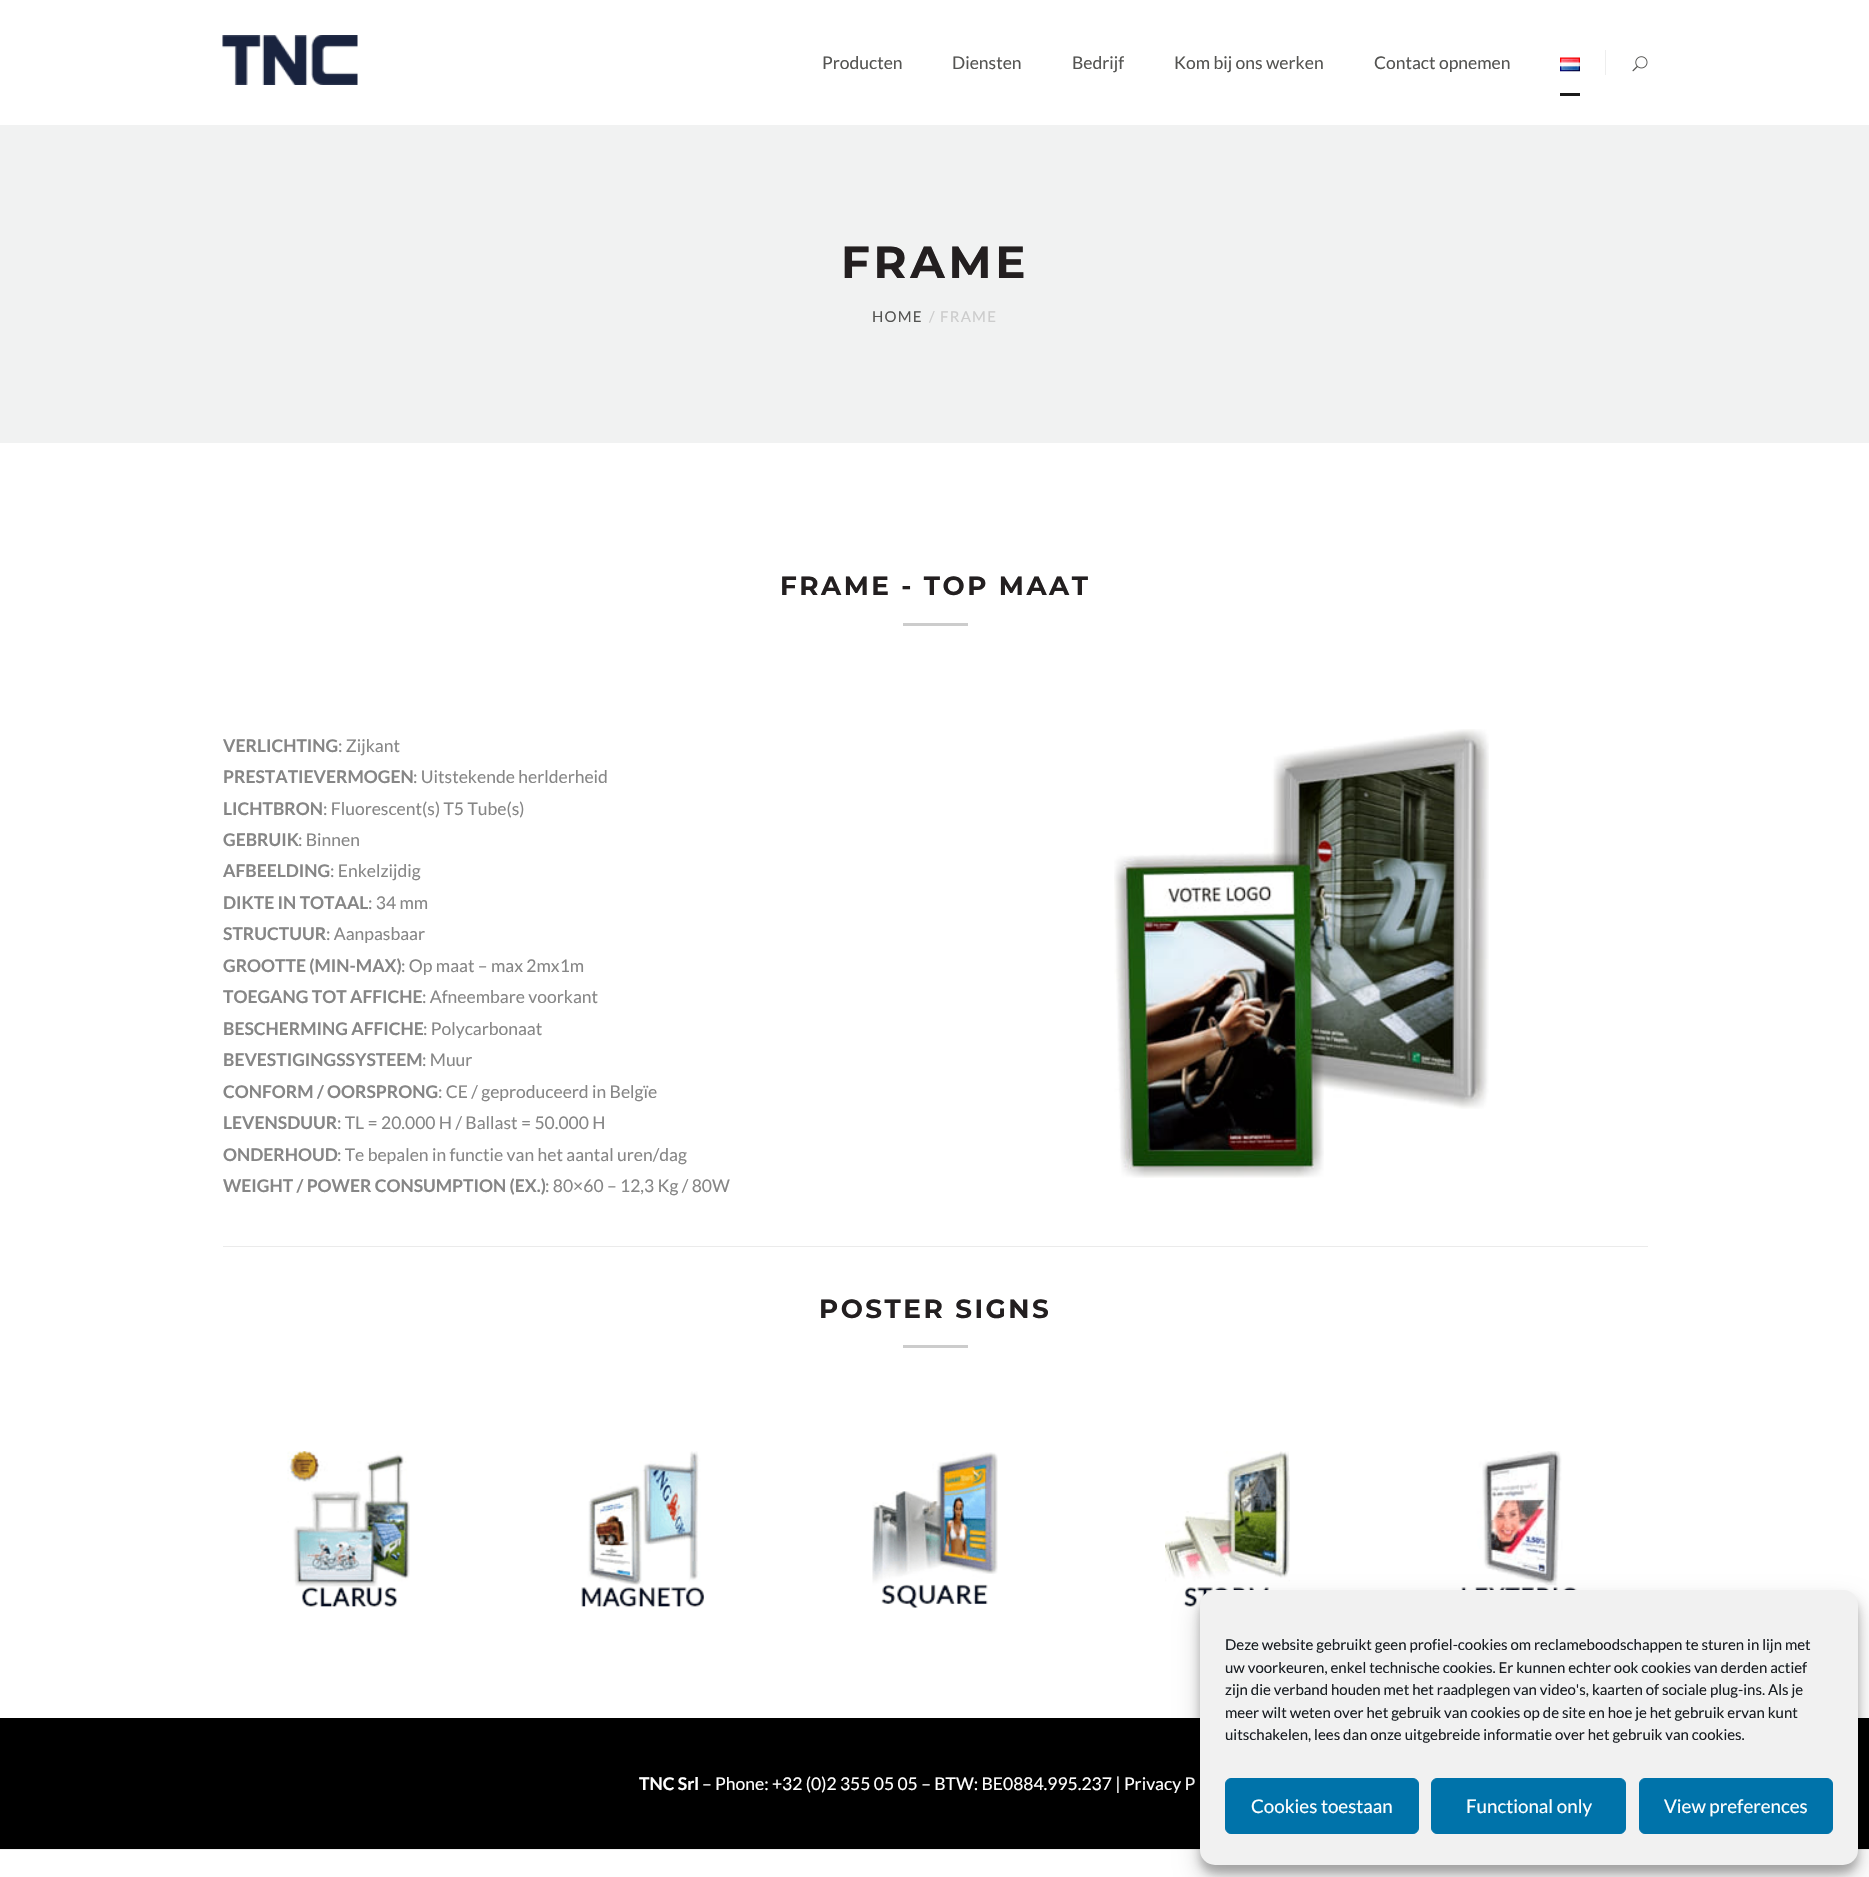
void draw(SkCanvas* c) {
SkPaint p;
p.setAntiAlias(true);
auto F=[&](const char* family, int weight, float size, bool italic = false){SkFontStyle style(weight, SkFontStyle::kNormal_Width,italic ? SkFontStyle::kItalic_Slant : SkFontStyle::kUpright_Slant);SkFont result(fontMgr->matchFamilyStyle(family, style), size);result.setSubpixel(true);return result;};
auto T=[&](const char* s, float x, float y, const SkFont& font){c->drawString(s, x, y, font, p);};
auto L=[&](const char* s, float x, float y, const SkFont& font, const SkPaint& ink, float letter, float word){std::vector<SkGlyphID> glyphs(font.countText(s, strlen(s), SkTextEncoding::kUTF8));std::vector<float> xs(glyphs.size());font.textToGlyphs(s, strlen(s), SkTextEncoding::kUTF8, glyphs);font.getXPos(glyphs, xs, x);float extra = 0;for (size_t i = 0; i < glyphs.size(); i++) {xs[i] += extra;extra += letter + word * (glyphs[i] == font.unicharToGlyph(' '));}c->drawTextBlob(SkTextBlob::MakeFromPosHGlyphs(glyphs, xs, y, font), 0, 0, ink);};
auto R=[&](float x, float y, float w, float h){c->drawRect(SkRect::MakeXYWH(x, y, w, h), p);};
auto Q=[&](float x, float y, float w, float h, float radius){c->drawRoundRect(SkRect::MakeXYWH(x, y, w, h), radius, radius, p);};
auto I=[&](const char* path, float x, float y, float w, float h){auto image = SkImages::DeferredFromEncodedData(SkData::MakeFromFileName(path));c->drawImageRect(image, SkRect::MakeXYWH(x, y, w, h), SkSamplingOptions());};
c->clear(0xffffffff);
I("1.png",222,35,136,50);
auto f1 = F("Lato",400,17.5);
p.setColor(0xff545452);
T("Producten",822,69,f1);
T("Diensten",952,69,f1);
T("Bedrijf",1072,69,f1);
T("Kom bij ons werken",1174,69,f1);
T("Contact opnemen",1374,69,f1);
I("2.png",1560,57,20,15);
p.setColor(0xff1b1b1b);
R(1560,93,20,3);
p.setColor(0xffeeeeee);
R(1605,50,1,25);
I("3.png",1632,56,16,16);
p.setColor(0xfff1f2f2);
R(0,125,1869,318);
auto f2 = F("Montserrat",700,45);
p.setColor(0xff231f20);
L("FRAME",841,278,f2,p,3.75,0);
auto f3 = F("Lato",400,15);
p.setColor(0xff545452);
L("HOME",872,322,f3,p,1.25,0);
p.setColor(0xffcccccc);
L("/ FRAME",929,322,f3,p,1.25,0);
auto f4 = F("Montserrat",700,26.25);
p.setColor(0xff231f20);
L("FRAME - TOP MAAT",780,595,f4,p,2.5,0);
p.setColor(0xffcccccc);
R(903,623,65,3);
auto f5 = F("Lato",700,17.5);
p.setColor(0xff868686);
T("VERLICHTING",223,752,f5);
T(": Zijkant",338,752,f1);
T("PRESTATIEVERMOGEN",223,783,f5);
T(": Uitstekende herlderheid",413,783,f1);
T("LICHTBRON",223,815,f5);
T(": Fluorescent(s) T5 Tube(s)",323,815,f1);
T("GEBRUIK",223,846,f5);
T(": Binnen",298,846,f1);
T("AFBEELDING",223,877,f5);
T(": Enkelzijdig",330,877,f1);
T("DIKTE IN TOTAAL",223,909,f5);
T(": 34 mm",368,909,f1);
T("STRUCTUUR",223,940,f5);
T(": Aanpasbaar",326,940,f1);
T("GROOTTE (MIN-MAX)",223,972,f5);
T(": Op maat – max 2mx1m",401,972,f1);
T("TOEGANG TOT AFFICHE",223,1003,f5);
T(": Afneembare voorkant",422,1003,f1);
T("BESCHERMING AFFICHE",223,1035,f5);
T(": Polycarbonaat",423,1035,f1);
T("BEVESTIGINGSSYSTEEM",223,1066,f5);
T(": Muur",422,1066,f1);
T("CONFORM / OORSPRONG",223,1098,f5);
T(": CE / geproduceerd in Belgïe",438,1098,f1);
T("LEVENSDUUR",223,1129,f5);
T(": TL = 20.000 H / Ballast = 50.000 H",337,1129,f1);
T("ONDERHOUD",223,1161,f5);
T(": Te bepalen in functie van het aantal uren/dag",337,1161,f1);
T("WEIGHT / POWER CONSUMPTION (EX.)",223,1192,f5);
T(": 80×60 – 12,3 Kg / 80W",545,1192,f1);
I("4.png",1114,729,375,449);
p.setColor(0xffebebeb);
R(223,1246,1425,1);
p.setColor(0xff231f20);
L("POSTER SIGNS",819,1318,f4,p,2.5,0);
p.setColor(0xffcccccc);
R(903,1345,65,3);
I("5.png",287,1451,123,156);
I("6.png",581,1451,124,156);
I("7.png",872,1452,126,156);
I("8.png",1165,1451,125,156);
I("9.png",1461,1451,118,139);
p.setColor(0xff000000);
R(0,1718,1869,131);
p.setColor(0xffffffff);
T("TNC Srl",639,1790,f5);
T("– Phone: +32 (0)2 355 05 05 – BTW: BE0884.995.237 | Privacy P",702,1790,f1);
p.setColor(0xffeeeeee);
R(0,1849,1869,1);
p.setColor(0x3b000000);
p.setMaskFilter(SkMaskFilter::MakeBlur(kNormal_SkBlurStyle, 4));
c->drawRoundRect(SkRect::MakeXYWH(1200,1598,658,275),15,15,p);
p.setMaskFilter(nullptr);
p.setColor(0x30000000);
p.setMaskFilter(SkMaskFilter::MakeBlur(kNormal_SkBlurStyle, 12.5));
c->drawRoundRect(SkRect::MakeXYWH(1200,1603,658,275),15,15,p);
p.setMaskFilter(nullptr);
p.setColor(0xfff1f1f1);
Q(1200,1590,658,275,15);
p.setColor(0xff191e23);
T("Deze website gebruikt geen profiel-cookies om reclameboodschappen te sturen in lijn met",1225,1650,f3);
T("uw voorkeuren, enkel technische cookies. Er kunnen echter ook cookies van derden actief",1225,1673,f3);
T("zijn die verband houden met het raadplegen van video's, kaarten of sociale plug-ins. Als je",1225,1695,f3);
T("meer wilt weten over het gebruik van cookies op de site en hoe je het gebruik ervan kunt",1225,1718,f3);
T("uitschakelen, lees dan onze uitgebreide informatie over het gebruik van cookies.",1225,1740,f3);
p.setColor(0xff0073aa);
c->drawRoundRect(SkRect::MakeXYWH(1225.5,1778.5,193,55),5.5,5.5,p);
p.setStroke(true);
p.setStrokeWidth(1);
c->drawRoundRect(SkRect::MakeXYWH(1225.5,1778.5,193,55),5.5,5.5,p);
auto f6 = F("Lato",400,18.75);
p.setStroke(false);
p.setColor(0xffffffff);
T("Cookies toestaan",1251,1813,f6);
p.setColor(0xff0073aa);
c->drawRoundRect(SkRect::MakeXYWH(1431.5,1778.5,194,55),5.5,5.5,p);
p.setStroke(true);
c->drawRoundRect(SkRect::MakeXYWH(1431.5,1778.5,194,55),5.5,5.5,p);
p.setStroke(false);
p.setColor(0xffffffff);
T("Functional only",1466,1813,f6);
p.setColor(0xff0073aa);
c->drawRoundRect(SkRect::MakeXYWH(1639.5,1778.5,193,55),5.5,5.5,p);
p.setStroke(true);
c->drawRoundRect(SkRect::MakeXYWH(1639.5,1778.5,193,55),5.5,5.5,p);
p.setStroke(false);
p.setColor(0xffffffff);
T("View preferences",1664,1813,f6);
}
